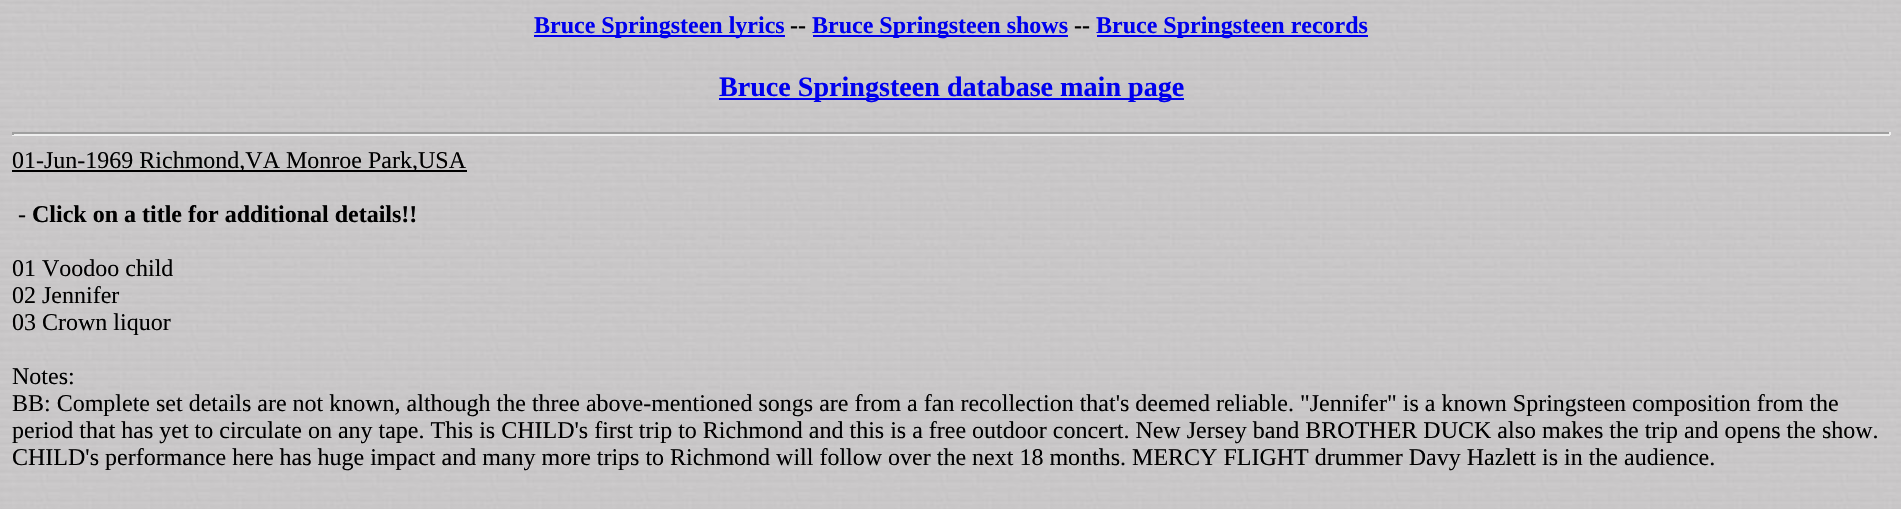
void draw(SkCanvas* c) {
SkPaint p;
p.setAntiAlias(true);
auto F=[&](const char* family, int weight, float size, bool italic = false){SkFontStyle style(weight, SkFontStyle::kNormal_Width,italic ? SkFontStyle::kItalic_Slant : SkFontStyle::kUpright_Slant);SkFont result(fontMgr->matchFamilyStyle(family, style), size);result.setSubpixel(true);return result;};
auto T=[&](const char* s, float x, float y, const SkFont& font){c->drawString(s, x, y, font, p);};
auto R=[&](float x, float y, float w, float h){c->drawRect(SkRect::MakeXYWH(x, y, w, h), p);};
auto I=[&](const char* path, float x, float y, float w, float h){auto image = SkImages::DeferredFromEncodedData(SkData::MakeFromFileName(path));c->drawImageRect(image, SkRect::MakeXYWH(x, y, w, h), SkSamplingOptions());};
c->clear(0xffffffff);
I("1.png",0,0,1901,509);
p.setColor(0xff0000ee);
R(534,35,251,2);
auto f1 = F("Liberation Serif",700,24);
T("Bruce Springsteen lyrics",534,33,f1);
p.setColor(0xff000000);
T("--",790,33,f1);
p.setColor(0xff0000ee);
R(813,35,255,2);
T("Bruce Springsteen shows",812,33,f1);
p.setColor(0xff000000);
T("--",1074,33,f1);
p.setColor(0xff0000ee);
R(1097,35,271,2);
T("Bruce Springsteen records",1096,33,f1);
R(719,98,465,2);
auto f2 = F("Liberation Serif",700,28.1);
T("Bruce Springsteen database main page",719,96,f2);
p.setColor(0xff9f9f9f);
R(12,132,1878,2);
p.setColor(0xffeeeeee);
R(1889,132,2,3);
R(12,134,1878,2);
p.setColor(0xff9f9f9f);
R(12,132,2,3);
p.setColor(0xff000000);
R(12,170,455,2);
auto f3 = F("Liberation Serif",400,24);
T("01-Jun-1969 Richmond,VA Monroe Park,USA",12,168,f3);
T("-",18,222,f3);
T("Click on a title for additional details!!",32,222,f1);
T("01 Voodoo child",12,276,f3);
T("02 Jennifer",12,303,f3);
T("03 Crown liquor",12,330,f3);
T("Notes:",12,384,f3);
T("BB: Complete set details are not known, although the three above-mentioned songs are from a fan recollection that's deemed reliable. \"Jennifer\" is a known Springsteen composition from the",12,411,f3);
T("period that has yet to circulate on any tape. This is CHILD's first trip to Richmond and this is a free outdoor concert. New Jersey band BROTHER DUCK also makes the trip and opens the show.",12,438,f3);
T("CHILD's performance here has huge impact and many more trips to Richmond will follow over the next 18 months. MERCY FLIGHT drummer Davy Hazlett is in the audience.",12,465,f3);
}
